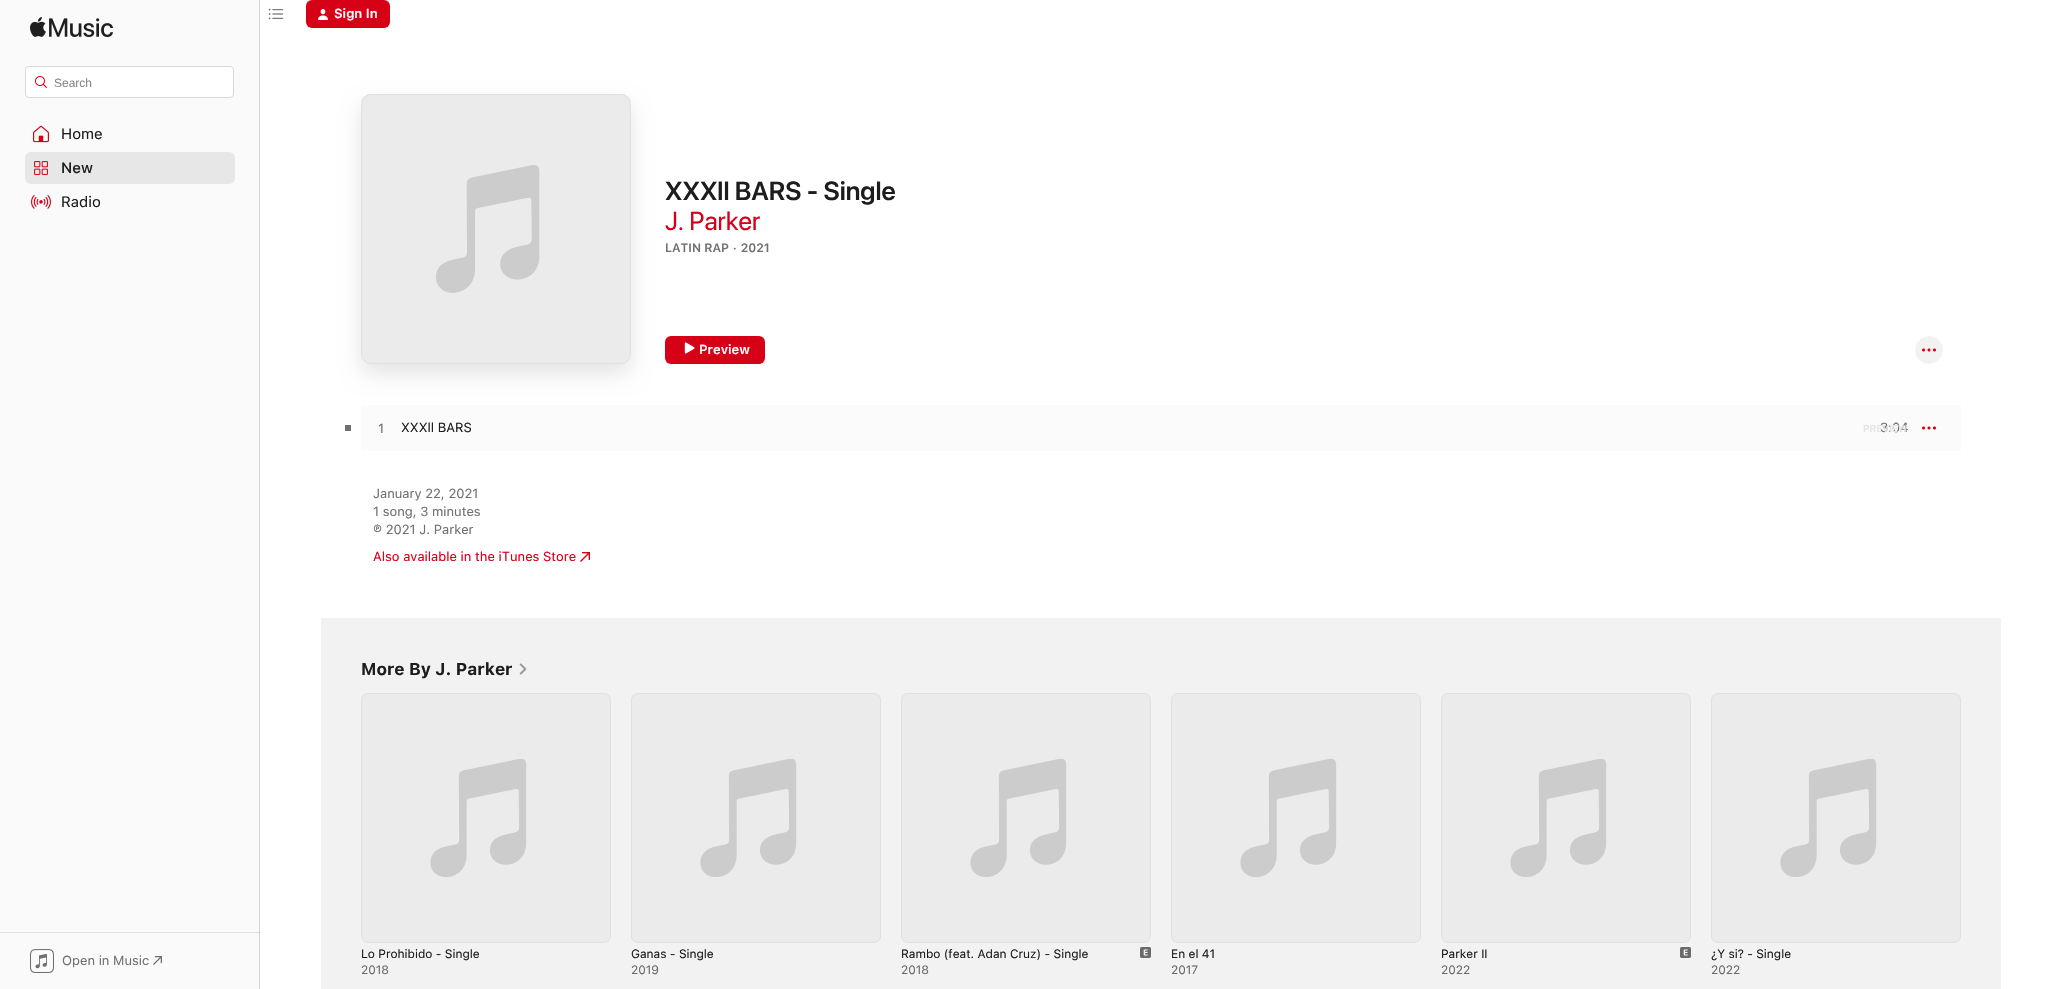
void draw(SkCanvas* c) {
SkPaint p;
p.setAntiAlias(true);
auto F=[&](const char* family, int weight, float size, bool italic = false){SkFontStyle style(weight, SkFontStyle::kNormal_Width,italic ? SkFontStyle::kItalic_Slant : SkFontStyle::kUpright_Slant);SkFont result(fontMgr->matchFamilyStyle(family, style), size);result.setSubpixel(true);return result;};
auto T=[&](const char* s, float x, float y, const SkFont& font){c->drawString(s, x, y, font, p);};
auto R=[&](float x, float y, float w, float h){c->drawRect(SkRect::MakeXYWH(x, y, w, h), p);};
auto Q=[&](float x, float y, float w, float h, float radius){c->drawRoundRect(SkRect::MakeXYWH(x, y, w, h), radius, radius, p);};
auto I=[&](const char* path, float x, float y, float w, float h){auto image = SkImages::DeferredFromEncodedData(SkData::MakeFromFileName(path));c->drawImageRect(image, SkRect::MakeXYWH(x, y, w, h), SkSamplingOptions());};
c->clear(0xffffffff);
I("1.png",268,8,16,12);
p.setColor(0xffd60017);
Q(306,0,84,28,6);
I("2.png",318,9,10,11);
auto f1 = F("SF",600,13);
p.setColor(0xffffffff);
T("Sign In",334,18,f1);
p.setColor(0xfffafafa);
R(0,0,259,989);
p.setColor(0xffe1e1e1);
R(0,932,260,1);
p.setColor(0xffd5d5d5);
R(259,0,1,989);
p.setColor(0xffc0c0c0);
R(259,932,1,1);
I("3.png",30,17,83,20);
p.setColor(0xffffffff);
c->drawRoundRect(SkRect::MakeXYWH(25.5,66.5,208,31),3.5,3.5,p);
p.setStroke(true);
p.setStrokeWidth(1);
p.setColor(0xffd9d9d9);
c->drawRoundRect(SkRect::MakeXYWH(25.5,66.5,208,31),3.5,3.5,p);
I("4.png",35,76,12,12);
auto f2 = F("Liberation Sans",400,12);
p.setStroke(false);
p.setColor(0xff858585);
T("Search",54,87,f2);
I("5.png",33,125,16,18);
auto f3 = F("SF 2",400,15);
p.setColor(0xff1d1d1d);
T("Home",61,139,f3);
p.setColor(0xffe7e7e8);
Q(25,152,210,32,6);
I("6.png",34,161,14,14);
auto f4 = F("SF",500,15);
p.setColor(0xff1d1d1d);
T("New",61,173,f4);
I("7.png",31,195,20,14);
T("Radio",61,207,f3);
I("8.png",30,949,24,24);
auto f5 = F("SF 2",400,13);
p.setColor(0xff707070);
T("Open in Music",62,965,f5);
I("9.png",153,956,9,9);
p.setColor(0x1a000000);
p.setMaskFilter(SkMaskFilter::MakeBlur(kNormal_SkBlurStyle, 10));
c->drawRoundRect(SkRect::MakeXYWH(361,104,270,270),10,10,p);
p.setMaskFilter(nullptr);
p.setColor(0xffebebeb);
Q(361,94,270,270,10);
I("10.png",361,94,270,199);
p.setStroke(true);
p.setColor(0x1a808080);
c->drawRoundRect(SkRect::MakeXYWH(361.5,94.5,269,269),9.5,9.5,p);
auto f6 = F("SF 2",600,26);
p.setStroke(false);
p.setColor(0xff1d1d1d);
T("XXXll BARS - Single",665,200,f6);
auto f7 = F("SF",400,26);
p.setColor(0xffd60017);
T("J. Parker",665,230,f7);
auto f8 = F("SF",600,12);
p.setColor(0xff707070);
T("LATIN RAP · 2021",665,252,f8);
p.setColor(0xffd60017);
Q(665,336,100,28,6);
I("11.png",684,342,11,12);
p.setColor(0xffffffff);
T("Preview",699,354,f1);
I("12.png",1915,336,28,28);
p.setColor(0xfffbfbfb);
R(361,405,1600,46);
p.setColor(0xff707070);
R(345,425,6,6);
T("1",378,433,f5);
p.setColor(0xff1d1d1d);
T("XXXll BARS",401,432,f5);
p.setColor(0xff707070);
T("3:04",1880,432,f5);
auto f9 = F("SF",500,10);
p.setColor(0xffe3e3e3);
T("PREVIEW",1863,432,f9);
I("13.png",1922,426,14,4);
p.setColor(0xff707070);
T("January 22, 2021",373,498,f5);
T("1 song, 3 minutes",373,516,f5);
T("℗ 2021 J. Parker",373,534,f5);
p.setColor(0xffd60017);
T("Also available in the iTunes Store",373,561,f5);
I("14.png",580,552,10,10);
p.setColor(0xfff2f2f2);
R(321,618,1680,371);
auto f10 = F("SF",700,17);
p.setColor(0xff1d1d1d);
T("More By J. Parker",361,675,f10);
I("15.png",519,663,8,12);
I("16.png",361,693,250,250);
p.setStroke(true);
p.setColor(0x1a808080);
c->drawRoundRect(SkRect::MakeXYWH(361.5,693.5,249,249),6.5,6.5,p);
auto f11 = F("SF 2",400,12);
p.setStroke(false);
p.setColor(0xff1d1d1d);
T("Lo Prohibido - Single",361,958,f11);
p.setColor(0xff6a6a6a);
T("2018",361,974,f11);
p.setColor(0xffebebeb);
Q(631,693,250,250,7);
I("17.png",700,758,97,119);
p.setStroke(true);
p.setColor(0xffe0e0e0);
c->drawRoundRect(SkRect::MakeXYWH(631.5,693.5,249,249),6.5,6.5,p);
p.setStroke(false);
p.setColor(0xff1d1d1d);
T("Ganas - Single",631,958,f11);
p.setColor(0xff6a6a6a);
T("2019",631,974,f11);
p.setColor(0xffebebeb);
Q(901,693,250,250,7);
I("17.png",970,758,97,119);
p.setStroke(true);
p.setColor(0x1a808080);
c->drawRoundRect(SkRect::MakeXYWH(901.5,693.5,249,249),6.5,6.5,p);
p.setStroke(false);
p.setColor(0xff1d1d1d);
T("Rambo (feat. Adan Cruz) - Single",901,958,f11);
I("18.png",1140,947,11,11);
p.setColor(0xff6a6a6a);
T("2018",901,974,f11);
I("19.png",1171,693,250,250);
p.setStroke(true);
p.setColor(0x1a808080);
c->drawRoundRect(SkRect::MakeXYWH(1171.5,693.5,249,249),6.5,6.5,p);
p.setStroke(false);
p.setColor(0xff1d1d1d);
T("En el 41",1171,958,f11);
p.setColor(0xff6a6a6a);
T("2017",1171,974,f11);
p.setColor(0xffebebeb);
Q(1441,693,250,250,7);
I("17.png",1510,758,97,119);
p.setStroke(true);
p.setColor(0x1a808080);
c->drawRoundRect(SkRect::MakeXYWH(1441.5,693.5,249,249),6.5,6.5,p);
p.setStroke(false);
p.setColor(0xff1d1d1d);
T("Parker II",1441,958,f11);
I("18.png",1680,947,11,11);
p.setColor(0xff6a6a6a);
T("2022",1441,974,f11);
p.setColor(0xffebebeb);
Q(1711,693,250,250,7);
I("17.png",1780,758,97,119);
p.setStroke(true);
p.setColor(0x1a808080);
c->drawRoundRect(SkRect::MakeXYWH(1711.5,693.5,249,249),6.5,6.5,p);
p.setStroke(false);
p.setColor(0xff1d1d1d);
T("¿Y si? - Single",1711,958,f11);
p.setColor(0xff6a6a6a);
T("2022",1711,974,f11);
}
